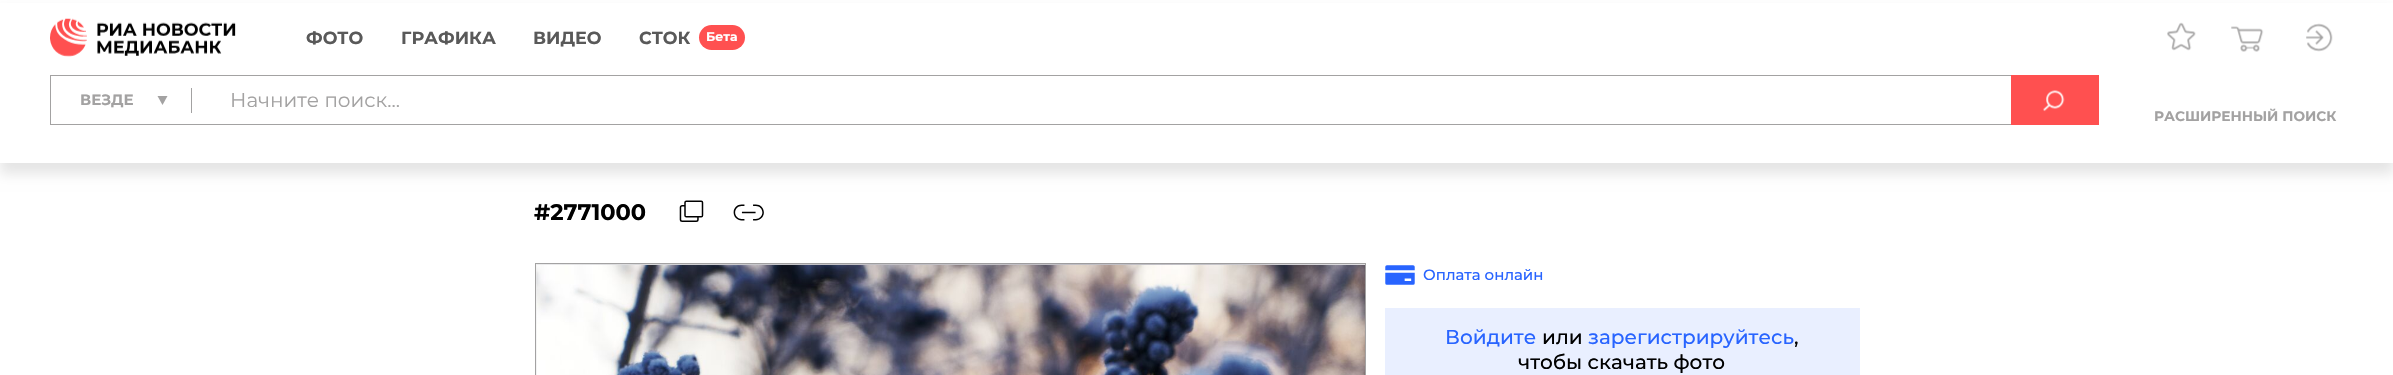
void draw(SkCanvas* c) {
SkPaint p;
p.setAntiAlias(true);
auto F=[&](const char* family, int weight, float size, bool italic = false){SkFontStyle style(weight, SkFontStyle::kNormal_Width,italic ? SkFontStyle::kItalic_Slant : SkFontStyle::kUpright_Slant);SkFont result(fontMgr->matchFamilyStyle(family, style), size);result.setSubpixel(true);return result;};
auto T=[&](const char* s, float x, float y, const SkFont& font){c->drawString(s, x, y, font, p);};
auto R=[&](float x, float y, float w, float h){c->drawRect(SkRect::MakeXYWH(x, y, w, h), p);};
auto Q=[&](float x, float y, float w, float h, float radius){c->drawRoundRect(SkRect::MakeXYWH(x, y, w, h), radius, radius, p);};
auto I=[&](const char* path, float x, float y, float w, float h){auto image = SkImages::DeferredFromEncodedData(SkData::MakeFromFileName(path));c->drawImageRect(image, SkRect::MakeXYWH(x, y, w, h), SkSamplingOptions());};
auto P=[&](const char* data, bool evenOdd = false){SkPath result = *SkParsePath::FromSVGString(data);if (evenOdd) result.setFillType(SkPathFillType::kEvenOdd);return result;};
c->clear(0xffffffff);
p.setColor(0x1a000000);
p.setMaskFilter(SkMaskFilter::MakeBlur(kNormal_SkBlurStyle, 6));
c->drawRect(SkRect::MakeXYWH(0,11,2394,163),p);
p.setMaskFilter(nullptr);
p.setColor(0xffffffff);
R(0,3,2393,160);
I("1.png",50,18,186,39);
auto f1 = F("Montserrat",700,17.5);
p.setColor(0xff595959);
T("ФОТО",306,44,f1);
T("ГРАФИКА",401,44,f1);
T("ВИДЕО",533,44,f1);
T("СТОК",639,44,f1);
p.setColor(0xffff5050);
Q(699,25,46,25,12.5);
auto f2 = F("Montserrat",700,12.5);
p.setColor(0xffffffff);
T("Бета",706,41,f2);
I("2.png",2167,22,29,29);
I("3.png",2231,26,33,26);
I("4.png",2306,23,27,29);
p.setColor(0xffa3a2a2);
R(50,75,1961,1);
R(50,124,1961,1);
R(50,75,1,50);
auto f3 = F("Montserrat",700,15);
T("ВЕЗДЕ",80,105,f3);
c->drawPath(P("M157.5 96h10l-5 9z"),p);
R(191,88,1,25);
auto f4 = F("Montserrat",400,20);
T("Начните поиск...",230,107,f4);
p.setColor(0xffff5050);
R(2011,75,88,50);
I("5.png",2043,90,22,22);
auto f5 = F("Montserrat",700,13.75);
p.setColor(0xffa3a2a2);
T("РАСШИРЕННЫЙ ПОИСК",2154,121,f5);
auto f6 = F("Montserrat",700,22.5);
p.setColor(0xff000000);
T("#2771000",534,220,f6);
I("6.png",679,200,25,22);
I("7.png",733,204,31,17);
p.setStroke(true);
p.setStrokeWidth(1);
p.setColor(0xffa3a2a2);
c->drawRect(SkRect::MakeXYWH(535.5,263.5,830,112),p);
I("8.png",536,263,829,112);
I("9.png",536,265,829,110);
I("10.png",1385,265,30,20);
auto f7 = F("Montserrat",500,15);
p.setStroke(false);
p.setColor(0xff2864ff);
T("Оплата онлайн",1423,280,f7);
p.setColor(0xffe9efff);
R(1385,308,475,67);
auto f8 = F("Montserrat",500,20);
p.setColor(0xff2864ff);
T("Войдите",1445,344,f8);
p.setColor(0xff000000);
T("или",1542,344,f8);
p.setColor(0xff2864ff);
T("зарегистрируйтесь",1588,344,f8);
p.setColor(0xff000000);
T(",",1794,344,f8);
T("чтобы скачать фото",1518,369,f8);
}
